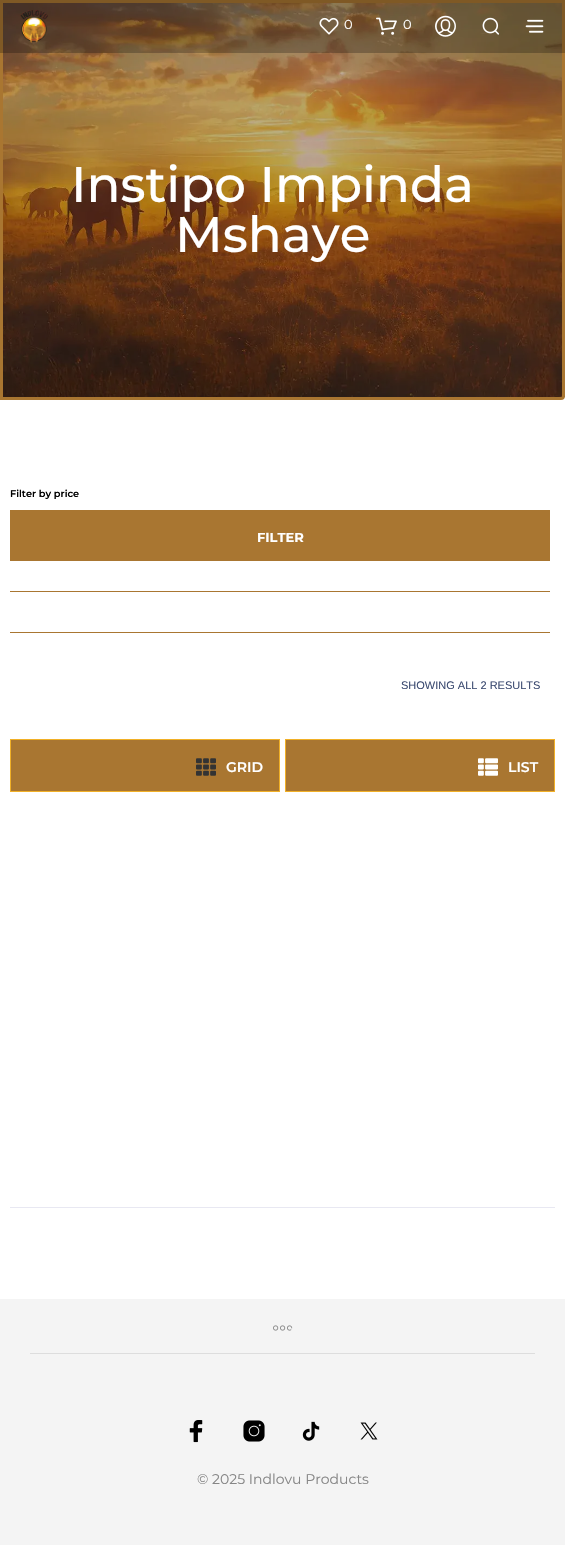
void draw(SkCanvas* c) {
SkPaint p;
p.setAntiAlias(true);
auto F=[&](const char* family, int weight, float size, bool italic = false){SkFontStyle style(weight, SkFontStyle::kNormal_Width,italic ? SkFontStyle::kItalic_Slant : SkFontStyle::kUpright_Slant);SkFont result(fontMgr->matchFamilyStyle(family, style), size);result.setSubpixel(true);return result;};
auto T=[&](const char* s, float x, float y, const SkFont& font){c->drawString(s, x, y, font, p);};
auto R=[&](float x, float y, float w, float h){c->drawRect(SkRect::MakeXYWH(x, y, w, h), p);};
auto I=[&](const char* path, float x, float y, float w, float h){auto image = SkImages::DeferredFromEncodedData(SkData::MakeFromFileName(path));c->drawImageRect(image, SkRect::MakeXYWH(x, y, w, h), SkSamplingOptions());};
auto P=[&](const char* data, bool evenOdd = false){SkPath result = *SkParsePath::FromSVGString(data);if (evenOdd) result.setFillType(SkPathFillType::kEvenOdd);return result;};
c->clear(0xffffffff);
I("7.png",3,3,562,394);
p.setStroke(true);
p.setStrokeWidth(3);
p.setColor(0xffa97631);
c->drawPath(P("M1.5 1.5h562v394.5c0 1.5-1 2.5-2.5 2.5h-559.5z"),p);
p.setStroke(false);
p.setColor(0x4d1d1616);
c->drawPath(P("M3 3h559v390c0 2-2 4-4 4h-555z"),p);
p.setColor(0x40000000);
R(0,0,565,53);
I("1.png",20,10,28,33);
I("2.png",319,17,20,18);
auto f1 = F("Montserrat",400,13);
p.setColor(0xffffffff);
T("0",344,29,f1);
I("3.png",376,17,21,18);
T("0",403,29,f1);
I("4.png",435,15,21,22);
I("5.png",482,17,17,18);
I("6.png",525,19,19,14);
auto f2 = F("Montserrat",500,50);
T("Instipo Impinda",71,202,f2);
T("Mshaye",175,252,f2);
auto f3 = F("Montserrat",600,9.75);
p.setColor(0xff000000);
T("Filter by price",10,497,f3);
p.setColor(0xffa97631);
R(10,510,540,51);
auto f4 = F("Montserrat",700,13);
p.setColor(0xffffffff);
T("FILTER",257,542,f4);
p.setColor(0xffa97631);
R(10,591,540,1);
R(10,632,540,1);
auto f5 = F("Liberation Sans",400,11);
p.setColor(0xff3c4b71);
T("SHOWING ALL 2 RESULTS",401,689,f5);
p.setColor(0xffa97631);
c->drawRect(SkRect::MakeXYWH(10.5,739.5,269,52),p);
p.setStroke(true);
p.setStrokeWidth(1);
p.setColor(0xfff1b027);
c->drawRect(SkRect::MakeXYWH(10.5,739.5,269,52),p);
I("8.png",196,758,20,18);
auto f6 = F("Montserrat",600,14);
p.setStroke(false);
p.setColor(0xffffffff);
T("GRID",226,772,f6);
p.setColor(0xffa97631);
c->drawRect(SkRect::MakeXYWH(285.5,739.5,269,52),p);
p.setStroke(true);
p.setColor(0xfff1b027);
c->drawRect(SkRect::MakeXYWH(285.5,739.5,269,52),p);
I("9.png",478,758,20,18);
p.setStroke(false);
p.setColor(0xffffffff);
T("LIST",508,772,f6);
p.setColor(0xffe8e8f2);
R(10,1207,545,1);
p.setColor(0xfff4f4f4);
R(0,1299,565,246);
p.setColor(0xffdddddd);
R(30,1353,505,1);
I("10.png",273,1325,20,6);
I("11.png",189,1420,14,23);
I("12.png",243,1420,22,22);
I("13.png",302,1421,18,20);
I("14.png",360,1422,18,18);
auto f7 = F("Montserrat",400,14);
p.setColor(0xff868686);
T("© 2025 Indlovu Products",197,1484,f7);
}
